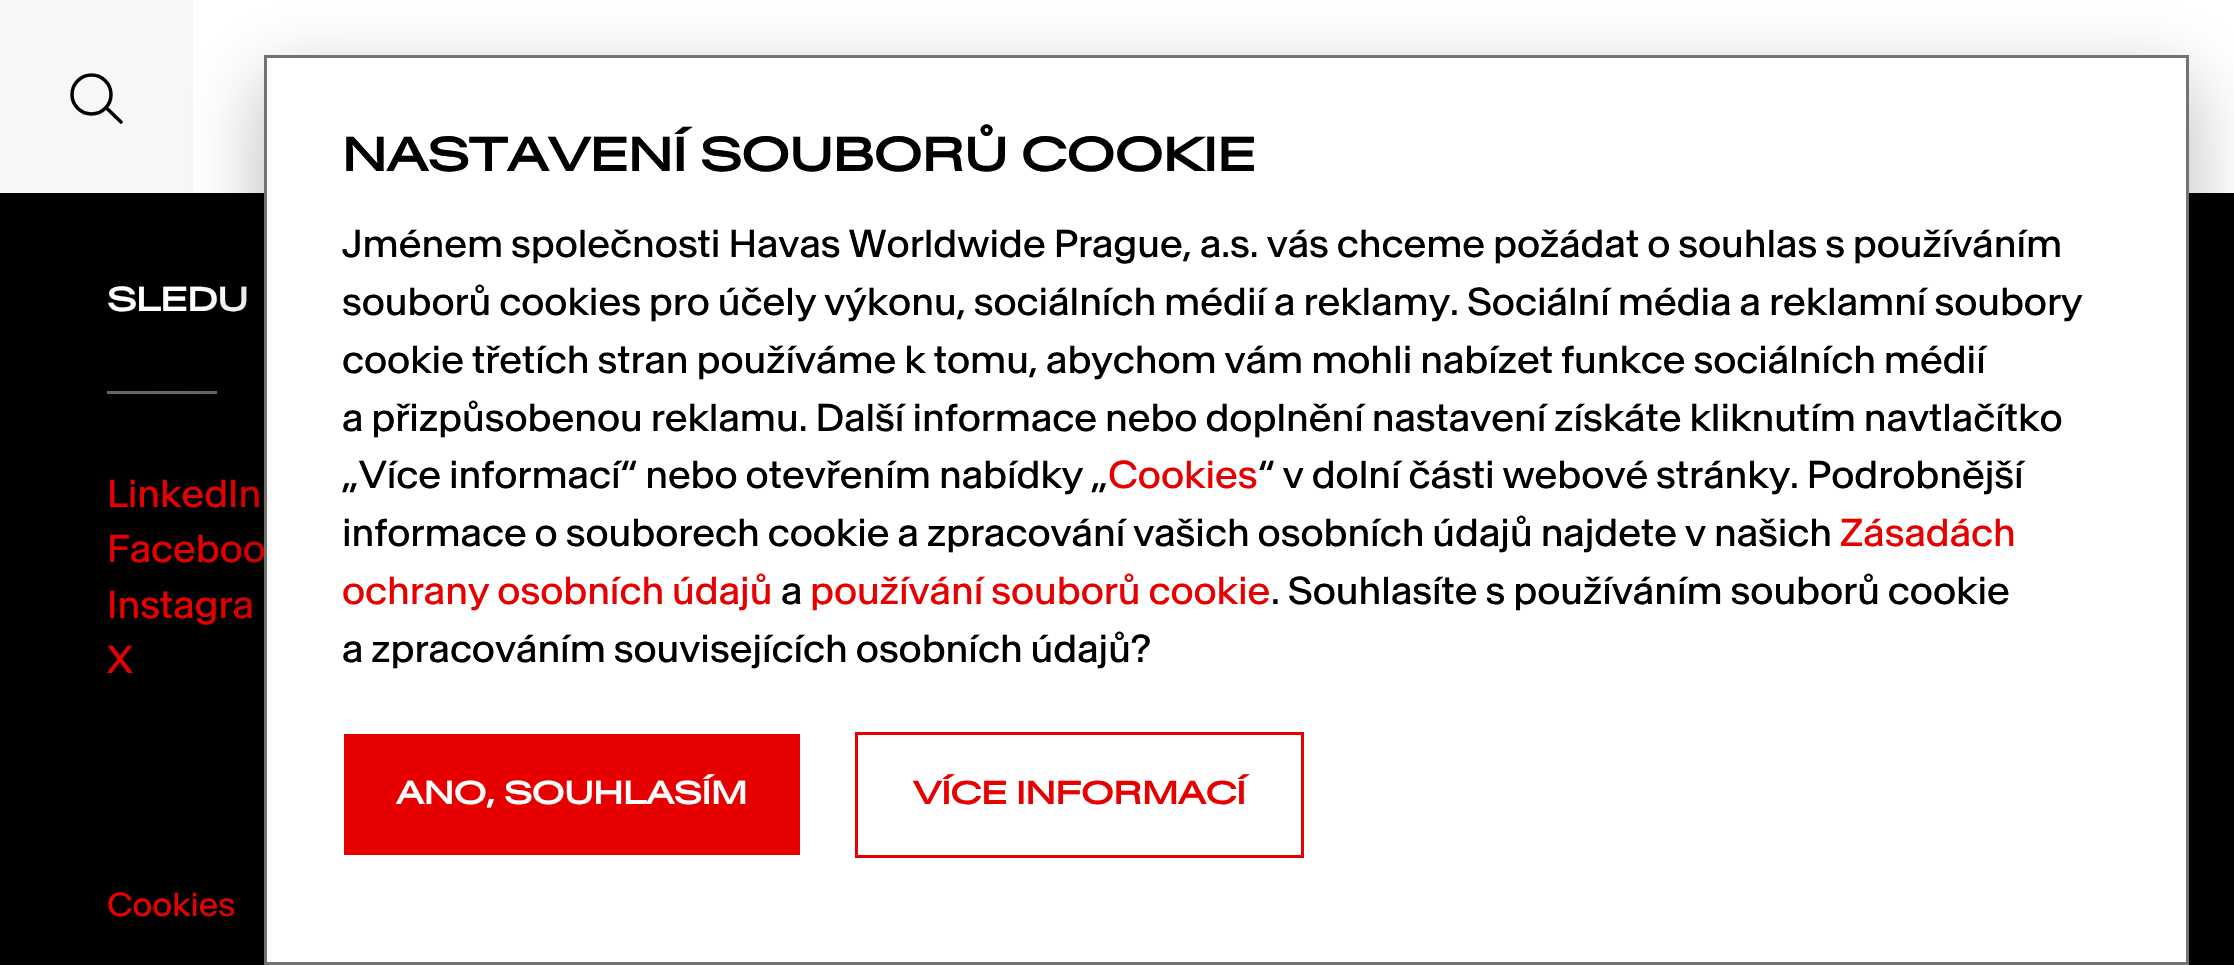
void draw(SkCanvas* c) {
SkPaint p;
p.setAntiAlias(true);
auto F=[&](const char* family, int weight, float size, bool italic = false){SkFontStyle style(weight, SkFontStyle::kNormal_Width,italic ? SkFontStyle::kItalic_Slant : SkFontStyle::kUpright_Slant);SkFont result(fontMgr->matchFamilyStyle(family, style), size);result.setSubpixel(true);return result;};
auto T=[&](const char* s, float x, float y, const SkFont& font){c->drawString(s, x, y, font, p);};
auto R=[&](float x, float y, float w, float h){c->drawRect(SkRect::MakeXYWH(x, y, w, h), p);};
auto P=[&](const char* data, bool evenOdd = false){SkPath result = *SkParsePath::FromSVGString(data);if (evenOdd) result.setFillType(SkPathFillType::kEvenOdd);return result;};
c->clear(0xff000000);
p.setColor(0xffffffff);
R(193,0,2041,193);
p.setColor(0xfff7f7f7);
R(0,0,193,193);
p.setStroke(true);
p.setStrokeWidth(3.5);
p.setColor(0xff000000);
c->drawCircle(91.5,94.5,19.5,p);
p.setStrokeCap(SkPaint::kRound_Cap);
p.setStrokeJoin(SkPaint::kRound_Join);
c->drawPath(P("M107 108.5l14 13.5"),p);
auto f1 = F("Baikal",700,33);
p.setStroke(false);
p.setColor(0xffffffff);
T("SLEDU",107,311,f1);
p.setColor(0xff666666);
R(107,391,110,3);
auto f2 = F("Baikal",400,38.5);
p.setColor(0xffe60000);
T("LinkedIn",107,507,f2);
T("Faceboo",107,562,f2);
T("Instagra",107,618,f2);
T("X",107,673,f2);
auto f3 = F("Baikal",400,33);
T("Cookies",107,916,f3);
p.setColor(0x47020203);
p.setMaskFilter(SkMaskFilter::MakeBlur(kNormal_SkBlurStyle, 36));
c->drawRect(SkRect::MakeXYWH(264,80,1925,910),p);
p.setMaskFilter(nullptr);
p.setColor(0xffffffff);
c->drawRect(SkRect::MakeXYWH(265.5,56.5,1922,907),p);
p.setStroke(true);
p.setStrokeWidth(3);
p.setStrokeCap(SkPaint::kButt_Cap);
p.setStrokeJoin(SkPaint::kMiter_Join);
p.setColor(0xff737373);
c->drawRect(SkRect::MakeXYWH(265.5,56.5,1922,907),p);
auto f4 = F("Baikal",700,46.75);
p.setStroke(false);
p.setColor(0xff000000);
T("NASTAVENÍ SOUBORŮ COOKIE",342,171,f4);
T("Jménem společnosti Havas Worldwide Prague, a.s. vás chceme požádat o souhlas s používáním",342,257,f2);
T("souborů cookies pro účely výkonu, sociálních médií a reklamy. Sociální média a reklamní soubory",342,315,f2);
T("cookie třetích stran používáme k tomu, abychom vám mohli nabízet funkce sociálních médií",342,373,f2);
T("a přizpůsobenou reklamu. Další informace nebo doplnění nastavení získáte kliknutím navtlačítko",342,431,f2);
T("„Více informací“ nebo otevřením nabídky „",342,488,f2);
p.setColor(0xffe60000);
T("Cookies",1108,488,f2);
p.setColor(0xff000000);
T("“ v dolní části webové stránky. Podrobnější",1258,488,f2);
T("informace o souborech cookie a zpracování vašich osobních údajů najdete v našich",342,546,f2);
p.setColor(0xffe60000);
T("Zásadách",1840,546,f2);
T("ochrany osobních údajů",342,604,f2);
p.setColor(0xff000000);
T("a",781,604,f2);
p.setColor(0xffe60000);
T("používání souborů cookie",810,604,f2);
p.setColor(0xff000000);
T(". Souhlasíte s používáním souborů cookie",1271,604,f2);
T("a zpracováním souvisejících osobních údajů?",342,662,f2);
p.setColor(0xffe60000);
R(344,734,456,121);
auto f5 = F("Baikal",700,31.5);
p.setColor(0xffffffff);
T("ANO, SOUHLASÍM",396,804,f5);
p.setStroke(true);
p.setColor(0xffe60000);
c->drawRect(SkRect::MakeXYWH(856.5,733.5,446,123),p);
p.setStroke(false);
T("VÍCE INFORMACÍ",913,804,f5);
}
